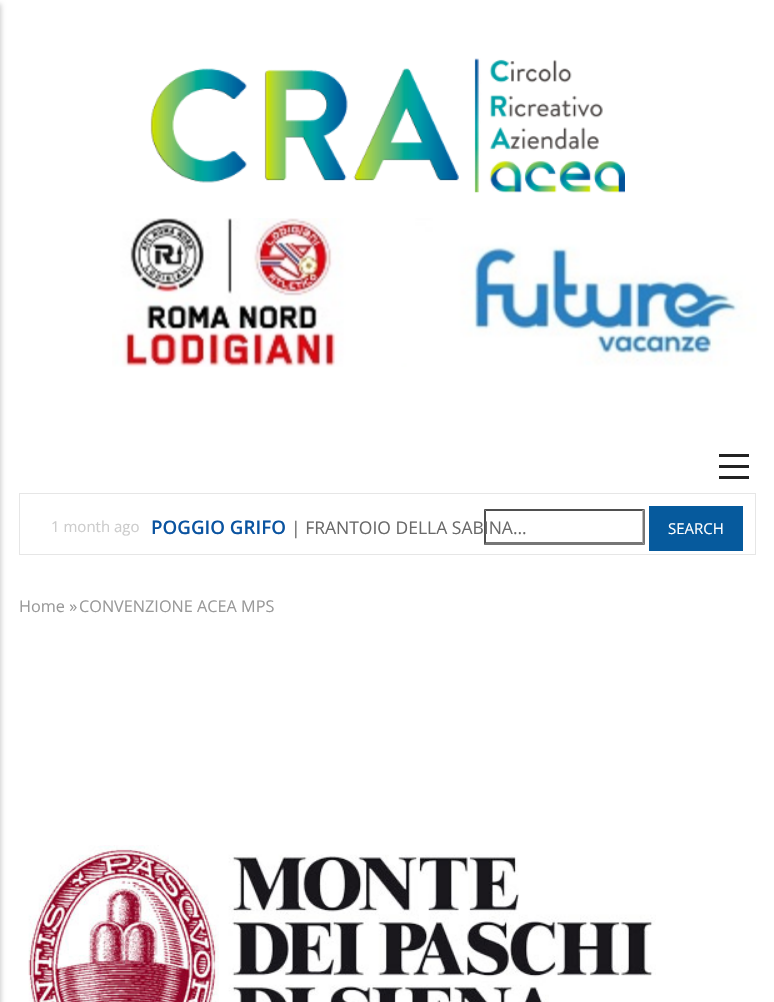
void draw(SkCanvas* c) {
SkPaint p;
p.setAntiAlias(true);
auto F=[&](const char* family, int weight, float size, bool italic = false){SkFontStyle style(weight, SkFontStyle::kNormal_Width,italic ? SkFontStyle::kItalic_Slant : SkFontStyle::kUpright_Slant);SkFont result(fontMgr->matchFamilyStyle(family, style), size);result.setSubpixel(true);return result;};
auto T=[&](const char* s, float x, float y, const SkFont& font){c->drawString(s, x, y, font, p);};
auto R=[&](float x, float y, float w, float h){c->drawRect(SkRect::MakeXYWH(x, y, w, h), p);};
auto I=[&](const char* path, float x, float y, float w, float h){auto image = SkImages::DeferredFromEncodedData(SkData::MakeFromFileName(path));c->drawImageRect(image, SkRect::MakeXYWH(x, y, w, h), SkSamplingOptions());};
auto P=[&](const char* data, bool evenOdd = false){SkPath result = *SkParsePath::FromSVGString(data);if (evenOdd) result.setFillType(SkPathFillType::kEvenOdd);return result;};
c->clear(0xffffffff);
I("1.png",150,58,475,135);
I("2.png",112,218,645,149);
p.setColor(0x33000000);
p.setMaskFilter(SkMaskFilter::MakeBlur(kNormal_SkBlurStyle, 2.5));
c->drawRect(SkRect::MakeXYWH(-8,4,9,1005),p);
p.setMaskFilter(nullptr);
p.setColor(0xff222222);
R(719,454,30,3);
R(719,465,30,3);
R(719,476,30,3);
p.setStroke(true);
p.setStrokeWidth(1);
p.setColor(0xffe6e6e6);
c->drawRect(SkRect::MakeXYWH(19.5,493.5,736,61),p);
auto f1 = F("Open Sans",400,15);
p.setStroke(false);
p.setColor(0xffcccccc);
T("1 month ago",51,532,f1);
auto f2 = F("Open Sans",600,18.75);
p.setColor(0xff0a53a0);
T("POGGIO GRIFO",151,534,f2);
p.setColor(0xff4f4f4f);
c->drawPath(P("M484 509h161l-3 2h-156z"),p);
p.setColor(0xff767676);
c->drawPath(P("M645 509v36l-2.5-2.5v-31.5z"),p);
c->drawPath(P("M645 545h-161l2-3h156z"),p);
p.setColor(0xff4f4f4f);
c->drawPath(P("M484 545v-36l2 2v31.5z"),p);
auto f3 = F("Open Sans",400,17.5);
p.setColor(0xff696969);
T("| FRANTOIO DELLA SABINA...",291,534,f3);
p.setColor(0xff065a9d);
R(649,506,94,45);
p.setColor(0xffffffff);
T("SEARCH",668,534,f1);
auto f4 = F("Open Sans",400,16.25);
p.setColor(0xff999999);
T("Home »",19,612,f4);
T("CONVENZIONE ACEA MPS",79,612,f4);
I("3.png",28,845,628,157);
}
